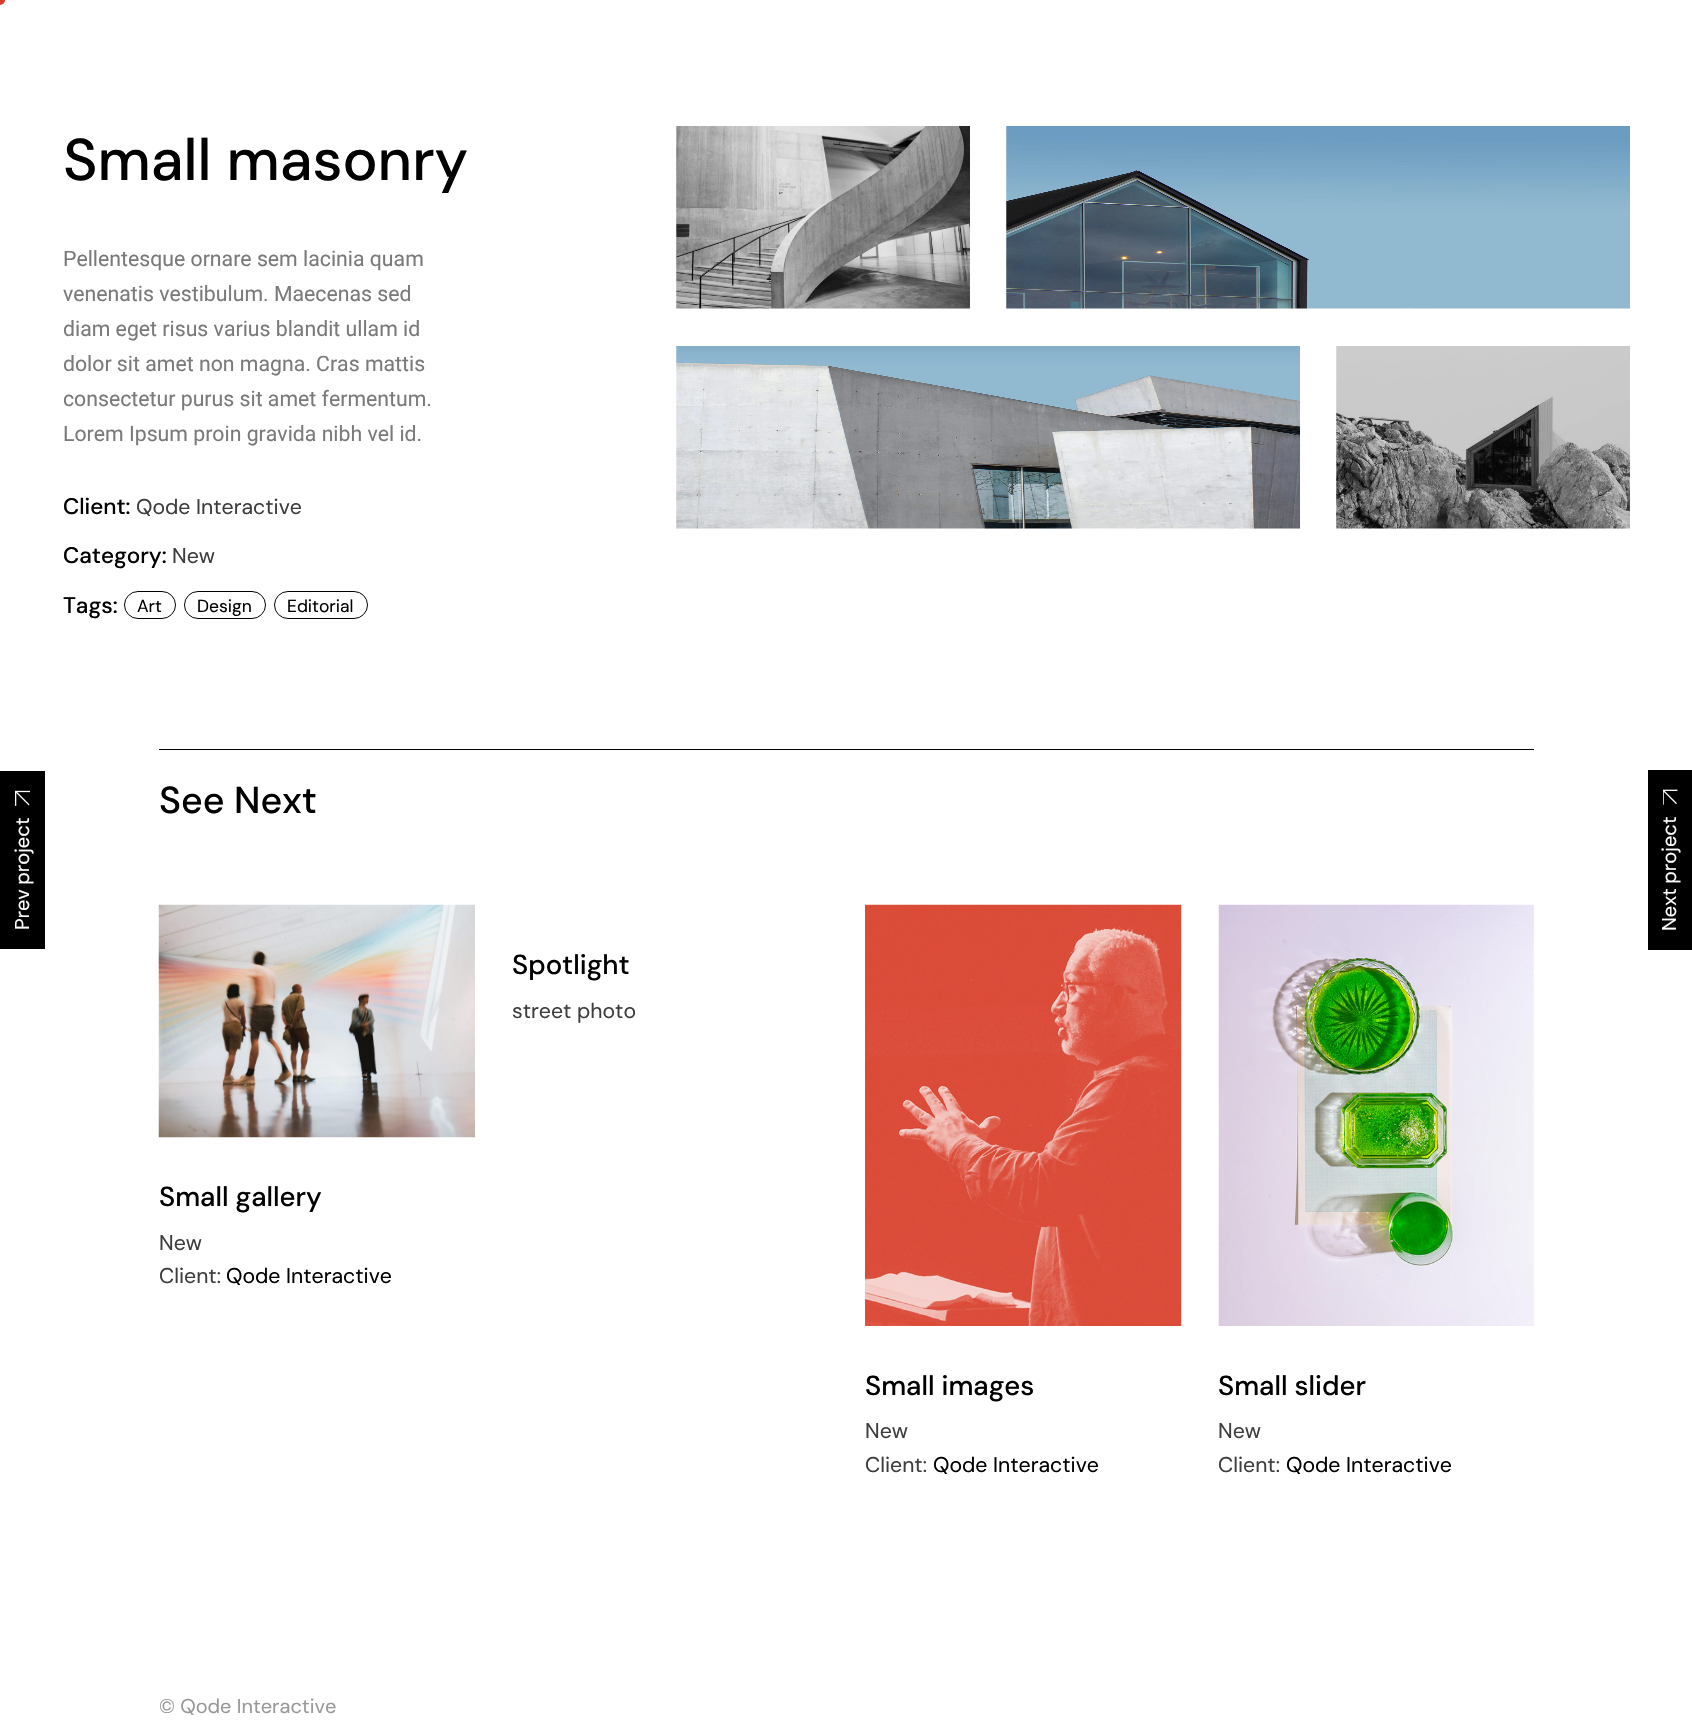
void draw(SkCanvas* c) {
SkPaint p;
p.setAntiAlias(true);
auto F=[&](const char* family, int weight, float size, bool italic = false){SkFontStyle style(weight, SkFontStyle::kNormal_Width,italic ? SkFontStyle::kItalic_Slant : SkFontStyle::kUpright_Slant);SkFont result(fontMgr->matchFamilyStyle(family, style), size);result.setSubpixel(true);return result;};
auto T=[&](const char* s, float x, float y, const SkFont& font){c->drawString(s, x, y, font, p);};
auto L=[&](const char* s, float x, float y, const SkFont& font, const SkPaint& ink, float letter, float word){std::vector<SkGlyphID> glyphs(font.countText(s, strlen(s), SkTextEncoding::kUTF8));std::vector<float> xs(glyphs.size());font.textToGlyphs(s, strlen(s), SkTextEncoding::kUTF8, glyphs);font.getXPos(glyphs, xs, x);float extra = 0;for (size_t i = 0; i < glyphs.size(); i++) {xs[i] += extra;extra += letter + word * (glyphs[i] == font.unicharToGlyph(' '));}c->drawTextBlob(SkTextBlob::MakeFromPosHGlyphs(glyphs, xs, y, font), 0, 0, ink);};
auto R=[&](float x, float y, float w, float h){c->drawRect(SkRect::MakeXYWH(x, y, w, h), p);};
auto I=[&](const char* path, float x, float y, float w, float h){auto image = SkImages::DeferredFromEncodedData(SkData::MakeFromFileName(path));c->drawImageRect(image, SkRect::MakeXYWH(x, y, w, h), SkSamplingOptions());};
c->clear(0xffffffff);
p.setColor(0xffd83c27);
c->drawCircle(0,0,5,p);
auto f1 = F("DM Sans",500,58.75);
p.setColor(0xff000000);
T("Small masonry",63,180,f1);
auto f2 = F("Roboto",400,21.25);
p.setColor(0xff7a7a7a);
T("Pellentesque ornare sem lacinia quam",63,266,f2);
T("venenatis vestibulum. Maecenas sed",63,301,f2);
T("diam eget risus varius blandit ullam id",63,336,f2);
T("dolor sit amet non magna. Cras mattis",63,371,f2);
T("consectetur purus sit amet fermentum.",63,406,f2);
T("Lorem Ipsum proin gravida nibh vel id.",63,441,f2);
auto f3 = F("DM Sans",500,22.5);
p.setColor(0xff000000);
T("Client:",63,514,f3);
auto f4 = F("DM Sans",400,21.25);
p.setColor(0xff3d3d3d);
T("Qode Interactive",136,514,f4);
p.setColor(0xff000000);
T("Category:",63,563,f3);
p.setColor(0xff3d3d3d);
T("New",172,563,f4);
p.setColor(0xff000000);
T("Tags:",63,613,f3);
p.setStroke(true);
p.setStrokeWidth(1);
c->drawRoundRect(SkRect::MakeXYWH(124.5,591.5,51,27),13.5,13.5,p);
auto f5 = F("DM Sans",400,17.5);
p.setStroke(false);
T("Art",137,612,f5);
p.setStroke(true);
c->drawRoundRect(SkRect::MakeXYWH(184.5,591.5,81,27),13.5,13.5,p);
p.setStroke(false);
T("Design",197,612,f5);
p.setStroke(true);
c->drawRoundRect(SkRect::MakeXYWH(274.5,591.5,93,27),13.5,13.5,p);
p.setStroke(false);
T("Editorial",287,612,f5);
I("1.png",676,126,294,183);
I("2.png",1006,126,624,183);
I("3.png",676,346,624,183);
I("4.png",1336,346,294,183);
R(0,771,45,178);
I("5.png",15,790,15,16);
auto f6 = F("DM Sans",400,20);
p.setColor(0xffffffff);
c->save();
c->rotate(-90,29,930);
L("Prev project",29,930,f6,p,0,-1);
c->restore();
p.setColor(0xff000000);
R(159,749,1375,1);
auto f7 = F("DM Sans",500,37.5);
T("See Next",159,813,f7);
auto f8 = F("DM Sans",500,27.5);
T("Spotlight",512,974,f8);
p.setColor(0xff3d3d3d);
T("street photo",512,1018,f4);
I("6.png",158,904,317,234);
p.setColor(0xff000000);
T("Small gallery",159,1206,f8);
p.setColor(0xff3d3d3d);
T("New",159,1250,f4);
T("Client:",159,1283,f4);
p.setColor(0xff000000);
T("Qode Interactive",226,1283,f4);
I("7.png",865,904,317,422);
T("Small images",865,1395,f8);
p.setColor(0xff3d3d3d);
T("New",865,1438,f4);
T("Client:",865,1472,f4);
p.setColor(0xff000000);
T("Qode Interactive",933,1472,f4);
I("8.png",1218,904,316,422);
T("Small slider",1218,1395,f8);
p.setColor(0xff3d3d3d);
T("New",1218,1438,f4);
T("Client:",1218,1472,f4);
p.setColor(0xff000000);
T("Qode Interactive",1286,1472,f4);
R(1648,770,44,180);
I("9.png",1663,789,15,16);
p.setColor(0xffffffff);
c->save();
c->rotate(-90,1676,931);
L("Next project",1676,931,f6,p,0,-1);
c->restore();
p.setColor(0xff989898);
T("© Qode Interactive",159,1713,f6);
}
